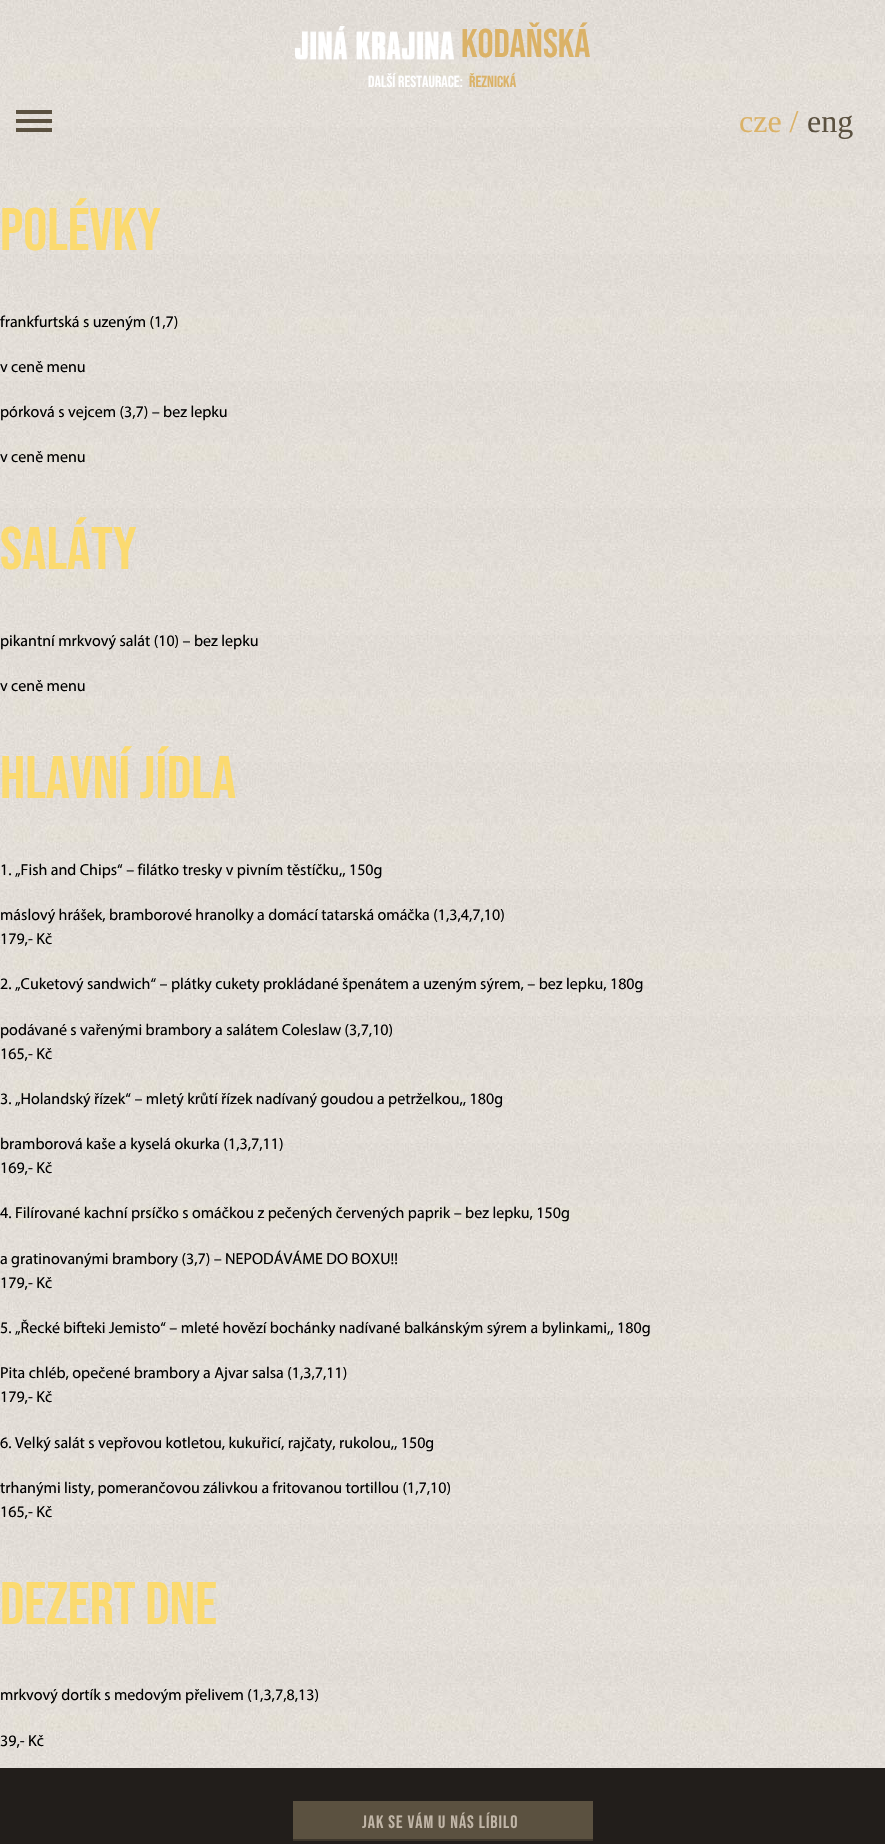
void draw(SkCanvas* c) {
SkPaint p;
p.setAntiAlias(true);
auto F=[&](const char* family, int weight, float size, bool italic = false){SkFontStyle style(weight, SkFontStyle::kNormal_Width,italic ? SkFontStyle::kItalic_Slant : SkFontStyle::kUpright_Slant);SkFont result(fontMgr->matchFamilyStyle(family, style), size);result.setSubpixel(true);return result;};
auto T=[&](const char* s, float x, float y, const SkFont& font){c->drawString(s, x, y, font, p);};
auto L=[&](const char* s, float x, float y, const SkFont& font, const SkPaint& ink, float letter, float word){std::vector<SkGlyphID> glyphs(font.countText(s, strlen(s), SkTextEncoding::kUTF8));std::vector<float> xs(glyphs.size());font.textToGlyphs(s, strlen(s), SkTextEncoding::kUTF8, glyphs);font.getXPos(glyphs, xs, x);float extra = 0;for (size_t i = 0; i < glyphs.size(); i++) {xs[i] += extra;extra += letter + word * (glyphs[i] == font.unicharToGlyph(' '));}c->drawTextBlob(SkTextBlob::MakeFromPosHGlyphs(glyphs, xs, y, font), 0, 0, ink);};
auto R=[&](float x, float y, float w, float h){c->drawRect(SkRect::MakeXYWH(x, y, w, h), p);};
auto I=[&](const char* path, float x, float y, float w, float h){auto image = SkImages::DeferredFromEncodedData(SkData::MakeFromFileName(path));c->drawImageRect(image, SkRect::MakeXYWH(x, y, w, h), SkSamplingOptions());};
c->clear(0xffffffff);
I("1.png",0,0,885,1768);
I("2.png",295,26,159,34);
auto f1 = F("Bebas Neue",400,40);
p.setColor(0xffdbb267);
T("Kodaňská",461,57,f1);
auto f2 = F("Bebas Neue",400,16);
p.setColor(0xffffffff);
T("Další restaurace:",368,87,f2);
p.setColor(0xffdbb267);
T("Řeznická",469,87,f2);
p.setColor(0xff5b5140);
R(16,119,36,4);
R(16,110,36,4);
R(16,128,36,4);
auto f3 = F("Liberation Serif",400,32);
p.setColor(0xffdbb267);
T("cze /",739,132,f3);
p.setColor(0xff5b5140);
T("eng",807,132,f3);
auto f4 = F("Bebas Neue",400,60);
p.setColor(0xfffbda70);
T("Polévky",0,250,f4);
auto f5 = F("Myriad",400,16);
p.setColor(0xff000000);
T("frankfurtská s uzeným (1,7)",0,327,f5);
T("v ceně menu",0,372,f5);
T("pórková s vejcem (3,7) – bez lepku",0,417,f5);
T("v ceně menu",0,462,f5);
p.setColor(0xfffbda70);
T("Saláty",0,569,f4);
p.setColor(0xff000000);
T("pikantní mrkvový salát (10) – bez lepku",0,646,f5);
T("v ceně menu",0,691,f5);
p.setColor(0xfffbda70);
T("Hlavní jídla",0,798,f4);
p.setColor(0xff000000);
T("1. „Fish and Chips“ – filátko tresky v pivním těstíčku,, 150g",0,875,f5);
T("máslový hrášek, bramborové hranolky a domácí tatarská omáčka (1,3,4,7,10)",0,920,f5);
T("179,- Kč",0,944,f5);
T("2. „Cuketový sandwich“ – plátky cukety prokládané špenátem a uzeným sýrem, – bez lepku, 180g",0,989,f5);
T("podávané s vařenými brambory a salátem Coleslaw (3,7,10)",0,1035,f5);
T("165,- Kč",0,1059,f5);
T("3. „Holandský řízek“ – mletý krůtí řízek nadívaný goudou a petrželkou,, 180g",0,1104,f5);
T("bramborová kaše a kyselá okurka (1,3,7,11)",0,1149,f5);
T("169,- Kč",0,1173,f5);
T("4. Filírované kachní prsíčko s omáčkou z pečených červených paprik – bez lepku, 150g",0,1218,f5);
T("a gratinovanými brambory (3,7) – NEPODÁVÁME DO BOXU!!",0,1264,f5);
T("179,- Kč",0,1288,f5);
T("5. „Řecké bifteki Jemisto“ – mleté hovězí bochánky nadívané balkánským sýrem a bylinkami,, 180g",0,1333,f5);
T("Pita chléb, opečené brambory a Ajvar salsa (1,3,7,11)",0,1378,f5);
T("179,- Kč",0,1402,f5);
T("6. Velký salát s vepřovou kotletou, kukuřicí, rajčaty, rukolou,, 150g",0,1448,f5);
T("trhanými listy, pomerančovou zálivkou a fritovanou tortillou (1,7,10)",0,1493,f5);
T("165,- Kč",0,1517,f5);
p.setColor(0xfffbda70);
T("Dezert dne",0,1624,f4);
p.setColor(0xff000000);
T("mrkvový dortík s medovým přelivem (1,3,7,8,13)",0,1700,f5);
T("39,- Kč",0,1746,f5);
p.setColor(0xff221e1b);
R(0,1768,885,76);
p.setColor(0xff5b5140);
R(293,1801,300,38);
p.setColor(0xff3d362b);
R(293,1839,300,2);
auto f6 = F("Bebas Neue",400,18);
p.setColor(0xffc1b6a8);
L("Jak se vám u nás líbilo",362,1828,f6,p,1,0);
}
